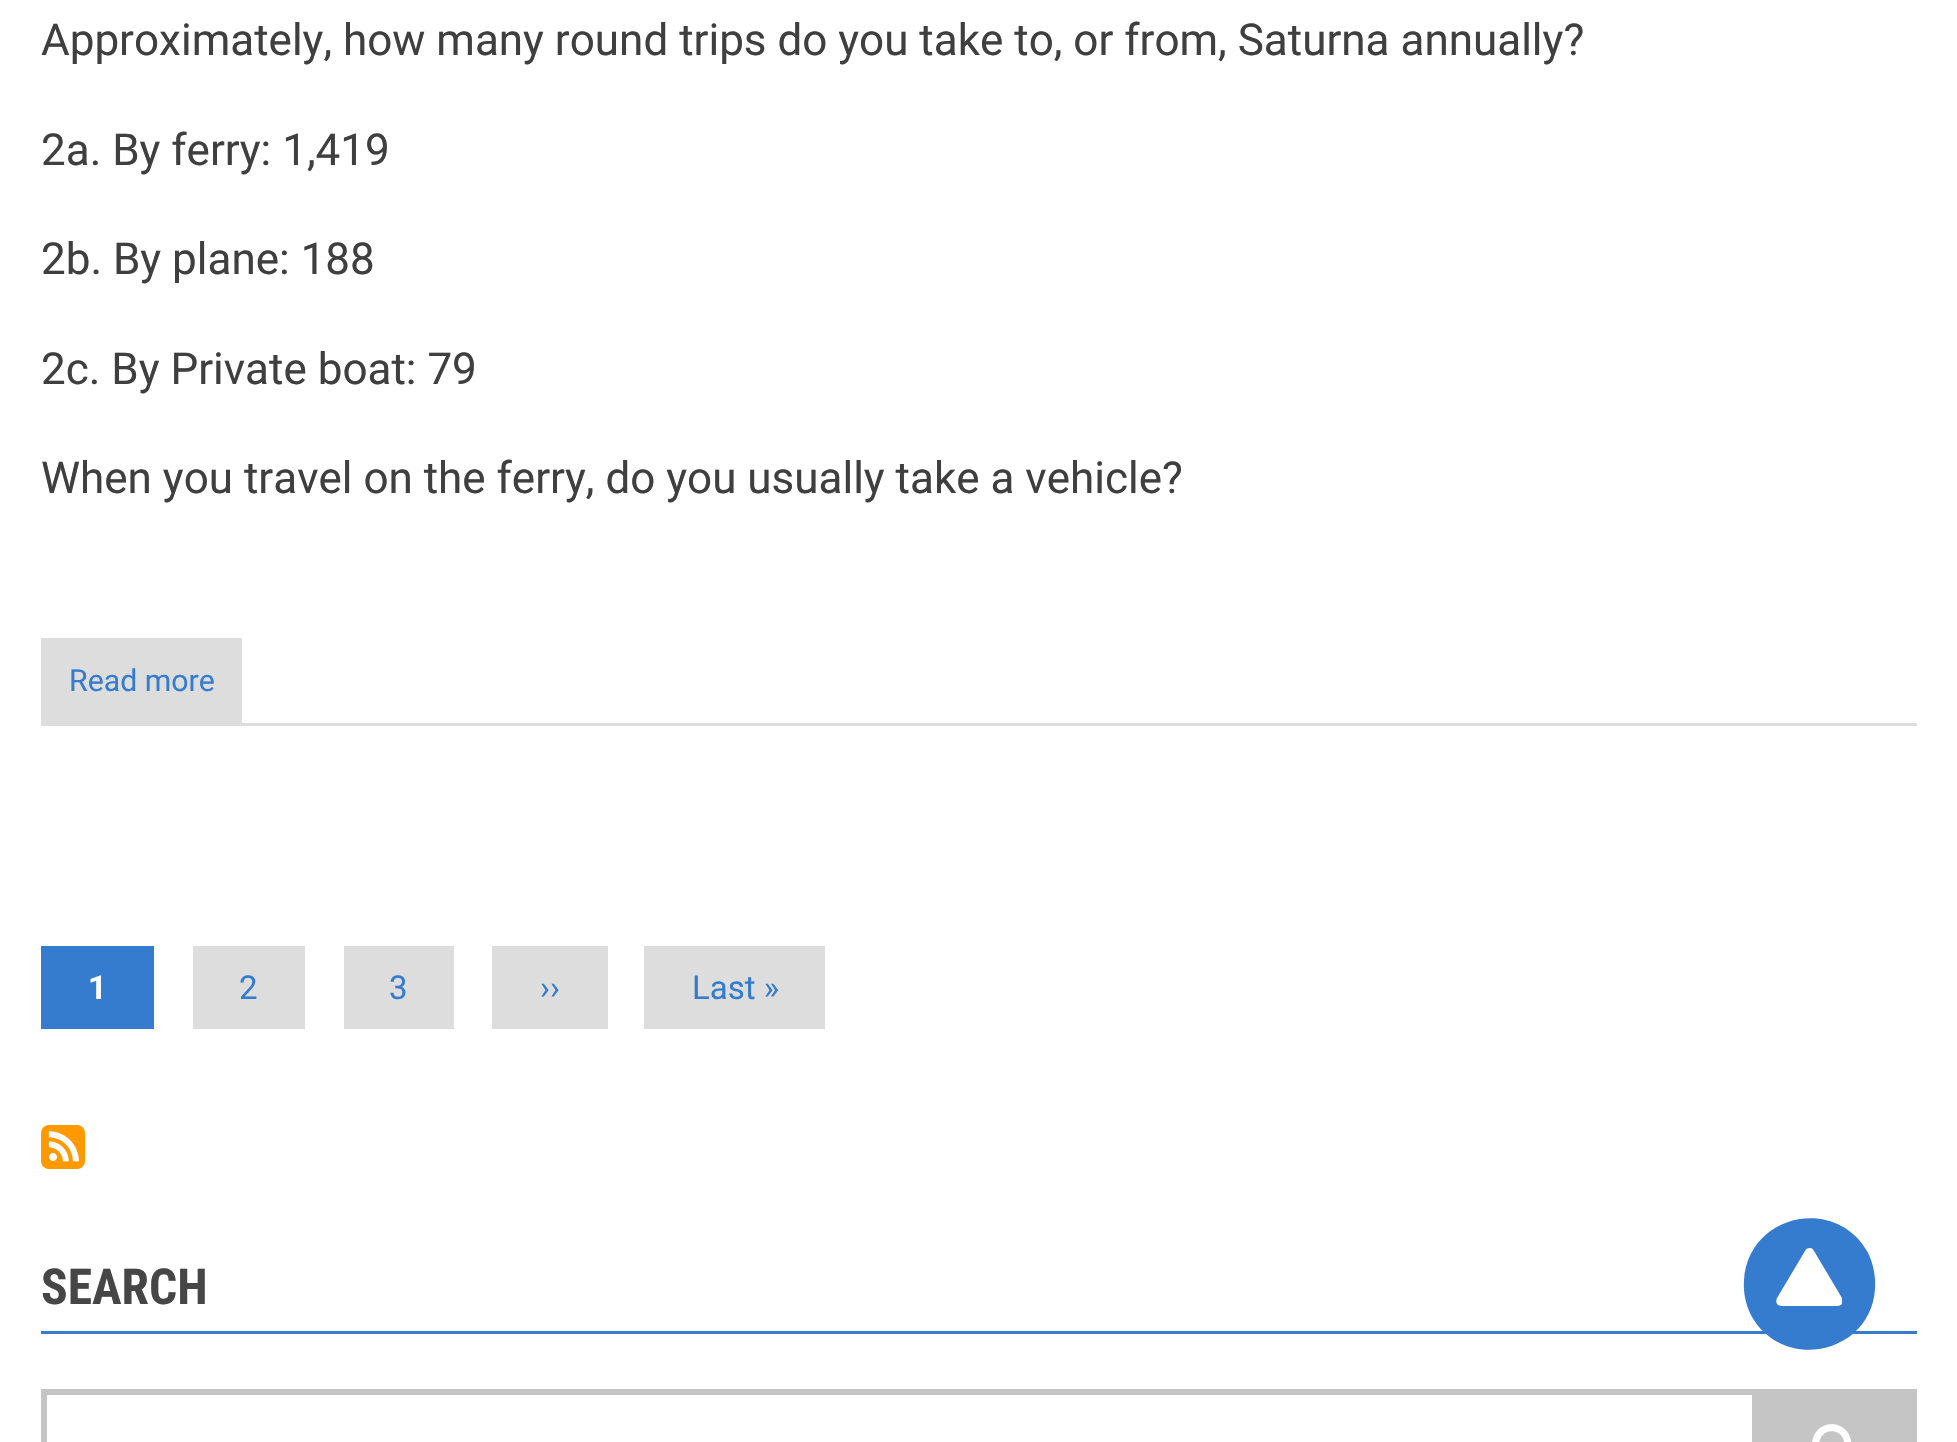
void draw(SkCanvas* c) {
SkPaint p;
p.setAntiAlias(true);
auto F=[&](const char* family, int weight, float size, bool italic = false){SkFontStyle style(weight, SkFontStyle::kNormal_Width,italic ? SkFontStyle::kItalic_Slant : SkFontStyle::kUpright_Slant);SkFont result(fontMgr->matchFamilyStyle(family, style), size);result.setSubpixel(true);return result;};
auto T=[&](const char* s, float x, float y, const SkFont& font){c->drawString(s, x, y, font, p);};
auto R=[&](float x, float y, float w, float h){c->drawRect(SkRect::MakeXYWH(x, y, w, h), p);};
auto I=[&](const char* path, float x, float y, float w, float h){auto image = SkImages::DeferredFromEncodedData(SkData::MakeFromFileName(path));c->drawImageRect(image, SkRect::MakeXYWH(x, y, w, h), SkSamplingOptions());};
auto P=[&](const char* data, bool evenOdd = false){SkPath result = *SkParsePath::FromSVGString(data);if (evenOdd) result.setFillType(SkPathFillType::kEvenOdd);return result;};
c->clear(0xffffffff);
p.setColor(0xffdddddd);
R(41,723,1876,3);
auto f1 = F("Roboto",400,44);
p.setColor(0xff3f3f3f);
T("Approximately, how many round trips do you take to, or from, Saturna annually?",41,55,f1);
T("2a. By ferry: 1,419",41,165,f1);
T("2b. By plane: 188",41,274,f1);
T("2c. By Private boat: 79",41,384,f1);
T("When you travel on the ferry, do you usually take a vehicle?",41,493,f1);
p.setColor(0xffdddddd);
R(41,638,201,85);
auto f2 = F("Roboto",400,30.25);
p.setColor(0xff357cce);
T("Read more",69,691,f2);
R(41,946,113,83);
auto f3 = F("Roboto",700,33);
p.setColor(0xffffffff);
T("1",88,999,f3);
p.setColor(0xffdddddd);
R(193,946,112,83);
auto f4 = F("Roboto",400,33);
p.setColor(0xff357cce);
T("2",239,999,f4);
p.setColor(0xffdddddd);
R(344,946,110,83);
p.setColor(0xff357cce);
T("3",389,999,f4);
p.setColor(0xffdddddd);
R(492,946,116,83);
p.setColor(0xff357cce);
T("››",540,999,f4);
p.setColor(0xffdddddd);
R(644,946,181,83);
p.setColor(0xff357cce);
T("Last »",692,999,f4);
I("1.png",41,1125,44,44);
R(41,1331,1876,3);
auto f5 = F("Roboto Condensed",700,49.5);
p.setColor(0xff464646);
T("SEARCH",41,1304,f5);
p.setStroke(true);
p.setStrokeWidth(6);
p.setColor(0xffc5c5c5);
c->drawRect(SkRect::MakeXYWH(44,1392,1870,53),p);
p.setStroke(false);
R(1752,1395,159,47);
I("2.png",1812,1424,39,18);
p.setColor(0xff357cce);
c->drawPath(P("M1752 1317c-6-11-9-24-8-37c4-65 90-85 123-29c6 11 9 25 8 38c-4 64-90 84-123 28zm62-66c-1-2-2-3-4-3c-3 0-4 1-5 3l-28 47c-1 2-1 4 0 6c1 1 3 2 5 2h55c2 0 4-1 5-2v-3v-3z"),p);
}
